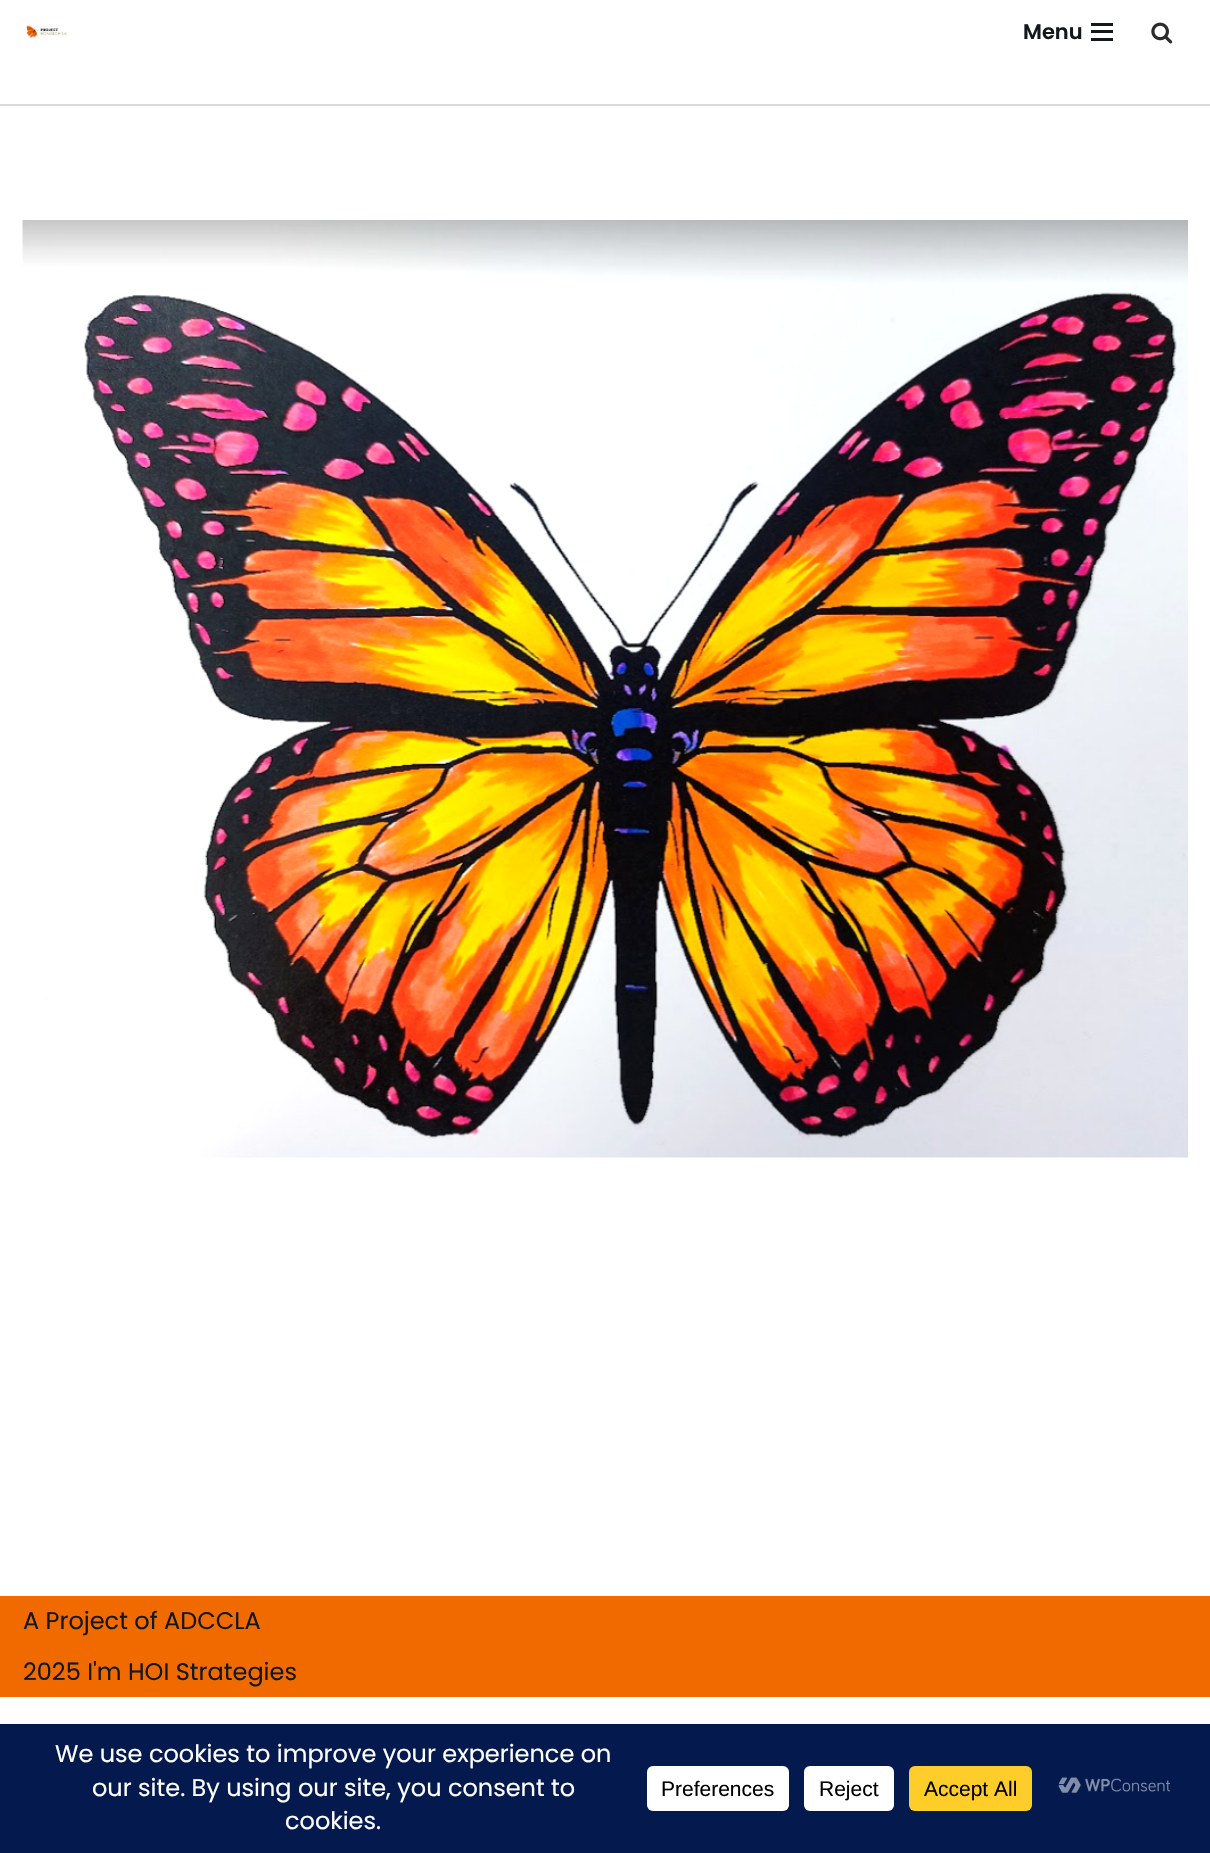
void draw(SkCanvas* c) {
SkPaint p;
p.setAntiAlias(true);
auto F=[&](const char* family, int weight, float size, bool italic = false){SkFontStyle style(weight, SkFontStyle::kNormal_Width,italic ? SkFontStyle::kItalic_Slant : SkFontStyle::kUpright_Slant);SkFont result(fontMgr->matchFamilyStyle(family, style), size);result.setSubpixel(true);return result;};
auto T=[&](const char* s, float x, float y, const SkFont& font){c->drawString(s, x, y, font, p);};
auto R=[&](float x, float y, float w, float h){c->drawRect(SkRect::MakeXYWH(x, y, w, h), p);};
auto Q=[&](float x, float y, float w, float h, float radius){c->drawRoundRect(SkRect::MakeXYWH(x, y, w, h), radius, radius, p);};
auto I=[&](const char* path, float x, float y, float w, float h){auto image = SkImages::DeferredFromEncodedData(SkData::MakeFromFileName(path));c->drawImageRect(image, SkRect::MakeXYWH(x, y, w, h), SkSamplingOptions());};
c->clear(0xffffffff);
p.setColor(0xffdadada);
R(0,104,1210,2);
I("1.png",26,24,41,15);
auto f1 = F("Poppins",600,21);
p.setColor(0xff14171c);
T("Menu",1023,39,f1);
R(1091,23,22,3);
R(1091,30,22,3);
R(1091,38,22,3);
I("2.png",1151,22,22,22);
I("3.png",22,220,1166,938);
p.setColor(0xfff06a00);
R(0,1596,1210,101);
auto f2 = F("Poppins",400,24);
p.setColor(0xff14171c);
T("A Project of ADCCLA",23,1629,f2);
T("2025 I'm HOI Strategies",23,1680,f2);
p.setColor(0xff04194e);
R(0,1724,1210,129);
p.setColor(0xffffffff);
T("We use cookies to improve your experience on",55,1762,f2);
T("our site. By using our site, you consent to",92,1796,f2);
T("cookies.",285,1829,f2);
Q(647,1766,142,45,6);
auto f3 = F("Liberation Sans",400,21);
p.setColor(0xff000000);
T("Preferences",661,1796,f3);
p.setColor(0xffffffff);
Q(804,1766,90,45,6);
p.setColor(0xff000000);
T("Reject",819,1796,f3);
p.setColor(0xffffcd2a);
Q(909,1766,123,45,6);
p.setColor(0xff000000);
T("Accept All",924,1796,f3);
I("4.png",1058,1777,112,16);
}
